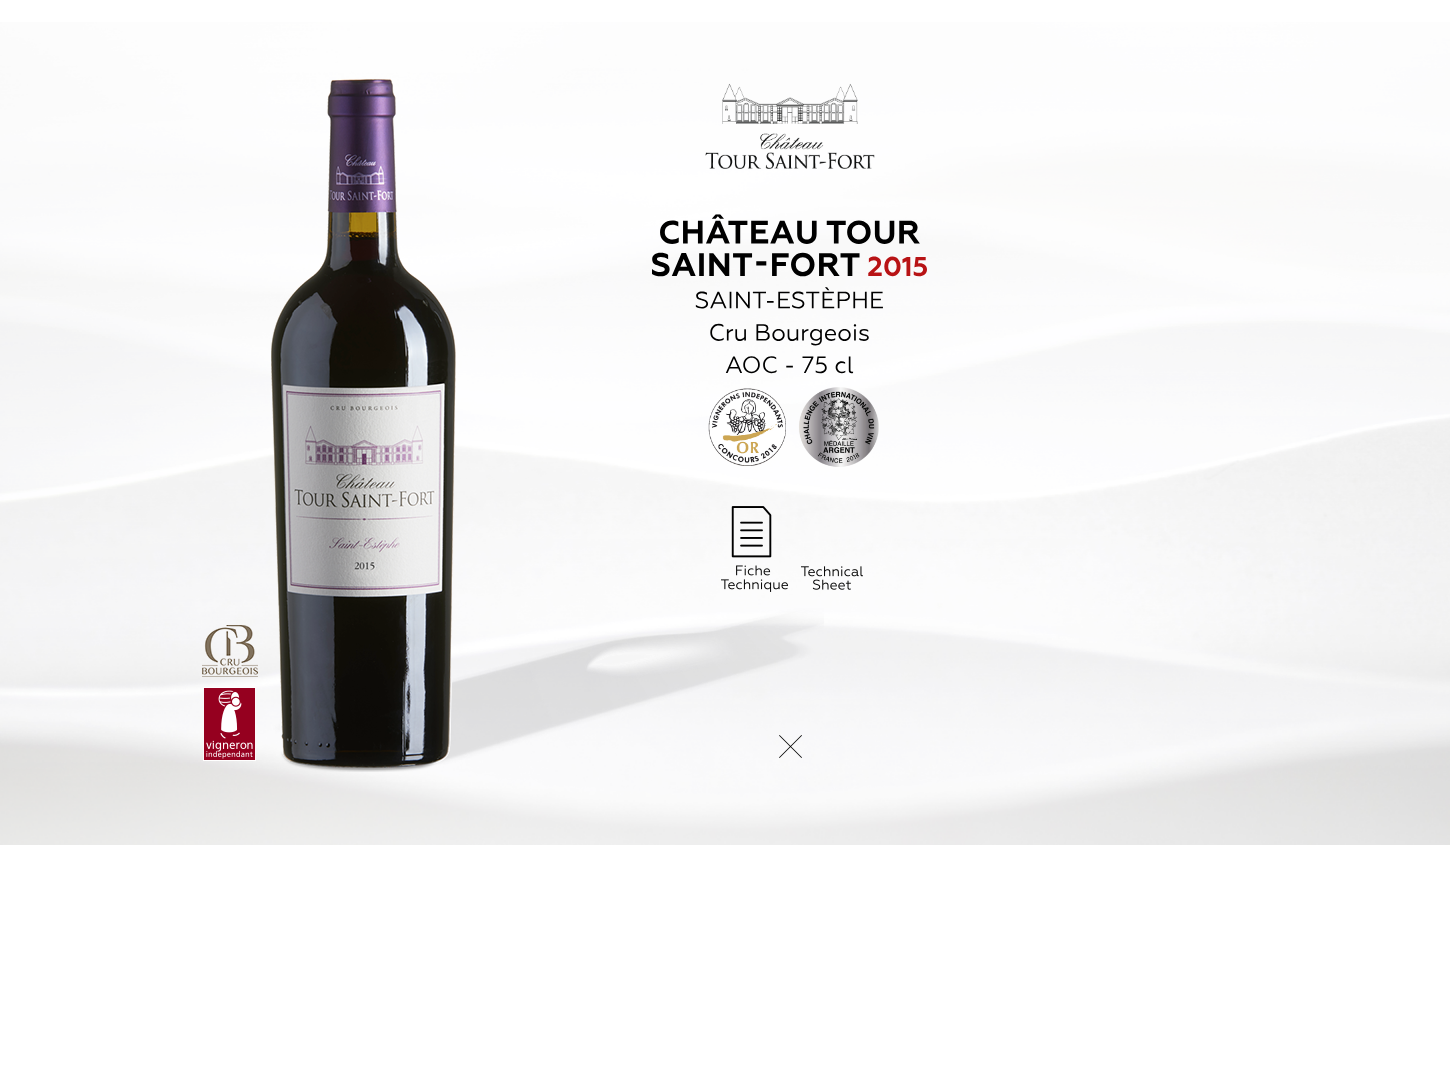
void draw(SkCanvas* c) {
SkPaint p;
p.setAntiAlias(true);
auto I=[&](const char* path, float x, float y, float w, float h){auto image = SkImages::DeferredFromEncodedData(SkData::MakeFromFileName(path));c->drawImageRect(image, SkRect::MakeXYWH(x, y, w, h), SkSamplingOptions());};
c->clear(0xffffffff);
I("1.png",0,22,1450,823);
I("2.png",271,78,553,694);
I("3.png",705,83,170,86);
I("4.png",652,214,275,253);
I("5.png",721,506,67,86);
I("6.png",801,566,62,24);
I("7.png",202,625,56,52);
I("8.png",203,687,53,74);
I("9.png",779,735,23,23);
}
